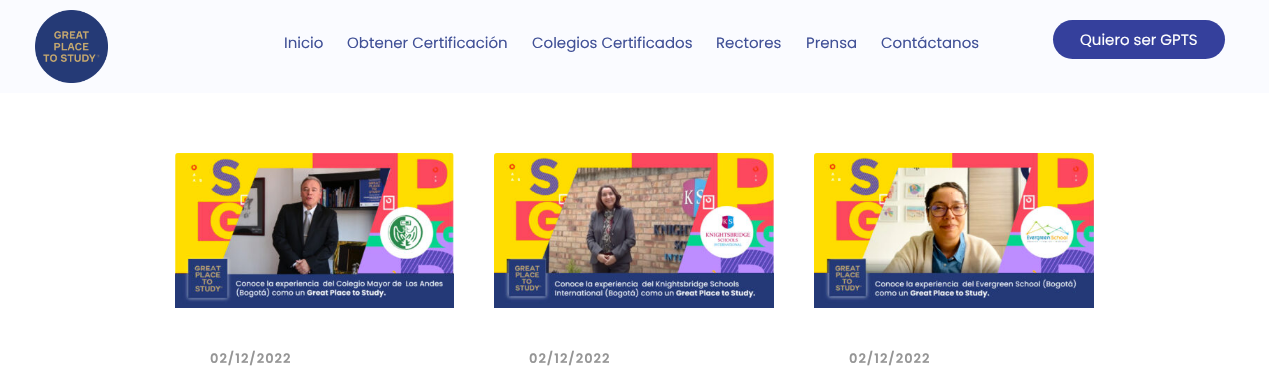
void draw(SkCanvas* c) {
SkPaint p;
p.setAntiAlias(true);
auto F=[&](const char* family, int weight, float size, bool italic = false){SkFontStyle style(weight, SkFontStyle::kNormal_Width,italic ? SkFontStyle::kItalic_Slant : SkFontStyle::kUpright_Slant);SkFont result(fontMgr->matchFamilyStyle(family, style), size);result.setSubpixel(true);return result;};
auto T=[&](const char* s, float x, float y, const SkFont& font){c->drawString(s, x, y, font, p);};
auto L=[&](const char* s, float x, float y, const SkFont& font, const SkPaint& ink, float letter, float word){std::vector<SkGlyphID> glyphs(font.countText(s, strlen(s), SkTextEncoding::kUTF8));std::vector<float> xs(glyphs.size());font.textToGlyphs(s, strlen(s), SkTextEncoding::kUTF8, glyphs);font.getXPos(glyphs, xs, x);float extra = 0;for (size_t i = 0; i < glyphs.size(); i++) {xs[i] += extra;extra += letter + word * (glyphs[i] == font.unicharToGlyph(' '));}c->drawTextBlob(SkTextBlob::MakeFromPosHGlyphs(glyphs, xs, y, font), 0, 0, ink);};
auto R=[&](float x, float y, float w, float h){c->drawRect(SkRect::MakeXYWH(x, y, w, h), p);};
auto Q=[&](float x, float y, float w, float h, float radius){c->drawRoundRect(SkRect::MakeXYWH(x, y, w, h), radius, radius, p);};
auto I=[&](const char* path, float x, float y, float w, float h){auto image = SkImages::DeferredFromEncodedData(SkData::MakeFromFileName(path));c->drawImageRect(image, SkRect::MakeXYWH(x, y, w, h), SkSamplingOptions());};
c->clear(0xffffffff);
p.setColor(0xfffafbff);
R(0,0,1269,93);
I("1.png",35,10,73,73);
auto f1 = F("Poppins",400,15);
p.setColor(0xff415197);
T("Inicio",284,48,f1);
T("Obtener Certificación",347,48,f1);
T("Colegios Certificados",532,48,f1);
T("Rectores",716,48,f1);
T("Prensa",806,48,f1);
T("Contáctanos",881,48,f1);
p.setColor(0xff35409c);
Q(1053,20,172,39,19.5);
p.setColor(0xffffffff);
T("Quiero ser GPTS",1080,45,f1);
I("2.png",175,153,279,155);
auto f2 = F("Poppins",600,13);
p.setColor(0xff959595);
L("02/12/2022",210,363,f2,p,1,0);
I("3.png",494,153,280,155);
L("02/12/2022",529,363,f2,p,1,0);
I("4.png",814,153,280,155);
L("02/12/2022",849,363,f2,p,1,0);
}
